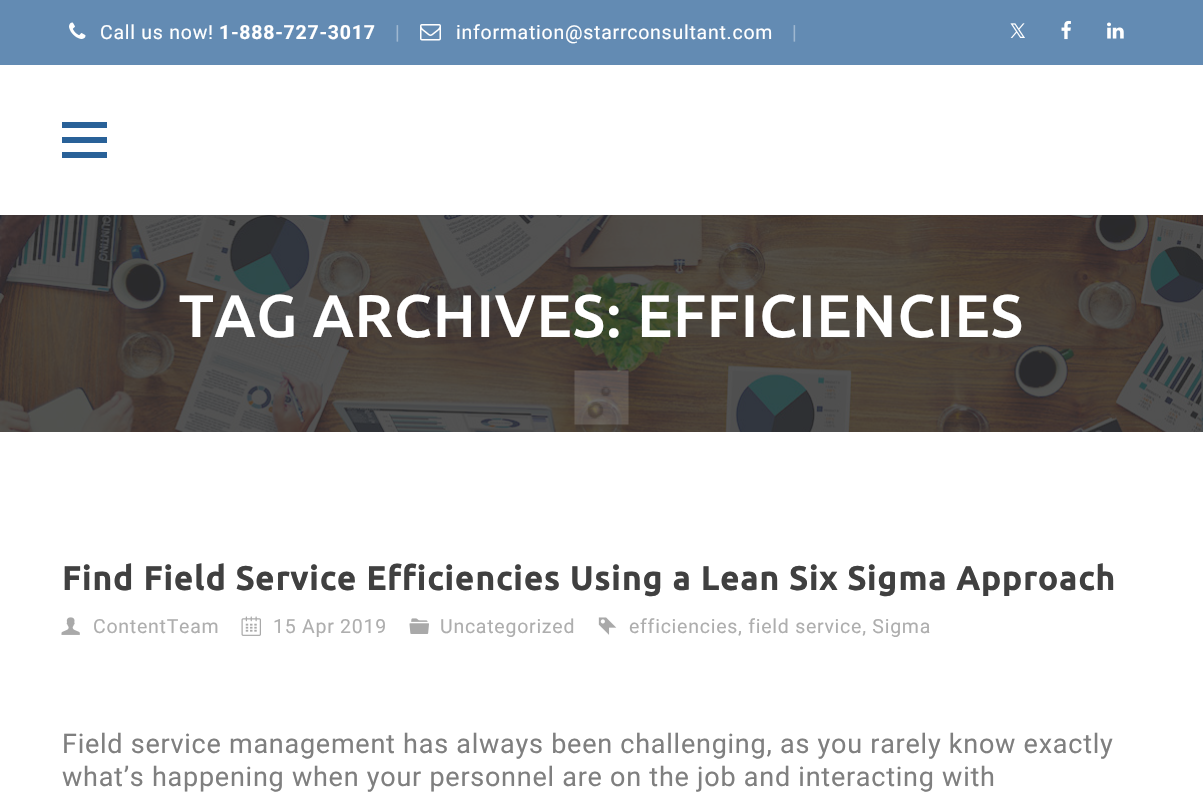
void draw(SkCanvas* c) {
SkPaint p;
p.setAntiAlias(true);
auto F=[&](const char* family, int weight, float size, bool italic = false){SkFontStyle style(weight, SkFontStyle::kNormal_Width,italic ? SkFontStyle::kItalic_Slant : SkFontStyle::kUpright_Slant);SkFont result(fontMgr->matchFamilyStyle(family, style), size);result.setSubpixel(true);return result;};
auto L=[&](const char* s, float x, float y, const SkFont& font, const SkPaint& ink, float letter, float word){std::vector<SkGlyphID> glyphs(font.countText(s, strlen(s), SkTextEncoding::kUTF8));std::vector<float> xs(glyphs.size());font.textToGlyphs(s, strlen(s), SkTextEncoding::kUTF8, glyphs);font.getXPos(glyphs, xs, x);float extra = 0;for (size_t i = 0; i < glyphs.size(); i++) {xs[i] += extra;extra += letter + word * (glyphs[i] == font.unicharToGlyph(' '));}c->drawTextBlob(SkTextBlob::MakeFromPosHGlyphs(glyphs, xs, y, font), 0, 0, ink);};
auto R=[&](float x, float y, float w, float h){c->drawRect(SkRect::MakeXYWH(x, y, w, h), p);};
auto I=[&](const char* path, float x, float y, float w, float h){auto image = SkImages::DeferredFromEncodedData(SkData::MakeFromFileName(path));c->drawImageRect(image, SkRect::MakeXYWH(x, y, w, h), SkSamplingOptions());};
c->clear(0xffffffff);
I("6.png",0,215,1203,217);
p.setColor(0x0f292929);
p.setMaskFilter(SkMaskFilter::MakeBlur(kNormal_SkBlurStyle, 1));
c->drawRect(SkRect::MakeXYWH(0,66,1203,150),p);
p.setMaskFilter(nullptr);
p.setColor(0xff638bb3);
R(0,0,1203,65);
I("1.png",69,22,17,17);
auto f1 = F("Roboto",400,19.5);
p.setColor(0xffffffff);
L("Call us now!",100,39,f1,p,.75,0);
auto f2 = F("Roboto",700,19.5);
L("1-888-727-3017",219,39,f2,p,.75,0);
p.setColor(0xff9eb7d0);
L("|",395,39,f1,p,.75,0);
I("2.png",420,24,21,17);
p.setColor(0xffffffff);
L("information@starrconsultant.com",456,39,f1,p,.75,0);
p.setColor(0xff9eb7d0);
L("|",792,39,f1,p,.75,0);
I("3.png",1010,23,15,15);
I("4.png",1061,20,10,20);
I("5.png",1107,22,17,17);
p.setColor(0xffffffff);
R(0,65,1203,150);
p.setColor(0xff296198);
R(62,137,45,6);
R(62,122,45,6);
R(62,152,45,6);
auto f3 = F("Ubuntu",500,60);
p.setColor(0xffffffff);
L("TAG ARCHIVES: EFFICIENCIES",179,337,f3,p,.75,0);
auto f4 = F("Ubuntu",700,33);
p.setColor(0xff404040);
L("Find Field Service Efficiencies Using a Lean Six Sigma Approach",62,590,f4,p,1.5,0);
I("7.png",61,617,19,18);
p.setColor(0xffaeaeae);
L("ContentTeam",93,633,f1,p,.75,0);
I("8.png",241,616,20,20);
L("15 Apr 2019",273,633,f1,p,.75,0);
I("9.png",409,618,20,16);
L("Uncategorized",440,633,f1,p,.75,0);
I("10.png",598,617,19,18);
L("efficiencies, field service, Sigma",629,633,f1,p,.75,0);
auto f5 = F("Roboto",400,27);
p.setColor(0xff7f7f7f);
L("Field service management has always been challenging, as you rarely know exactly",62,753,f5,p,.75,0);
L("what’s happening when your personnel are on the job and interacting with",62,786,f5,p,.75,0);
I("11.png",574,370,55,55);
}
